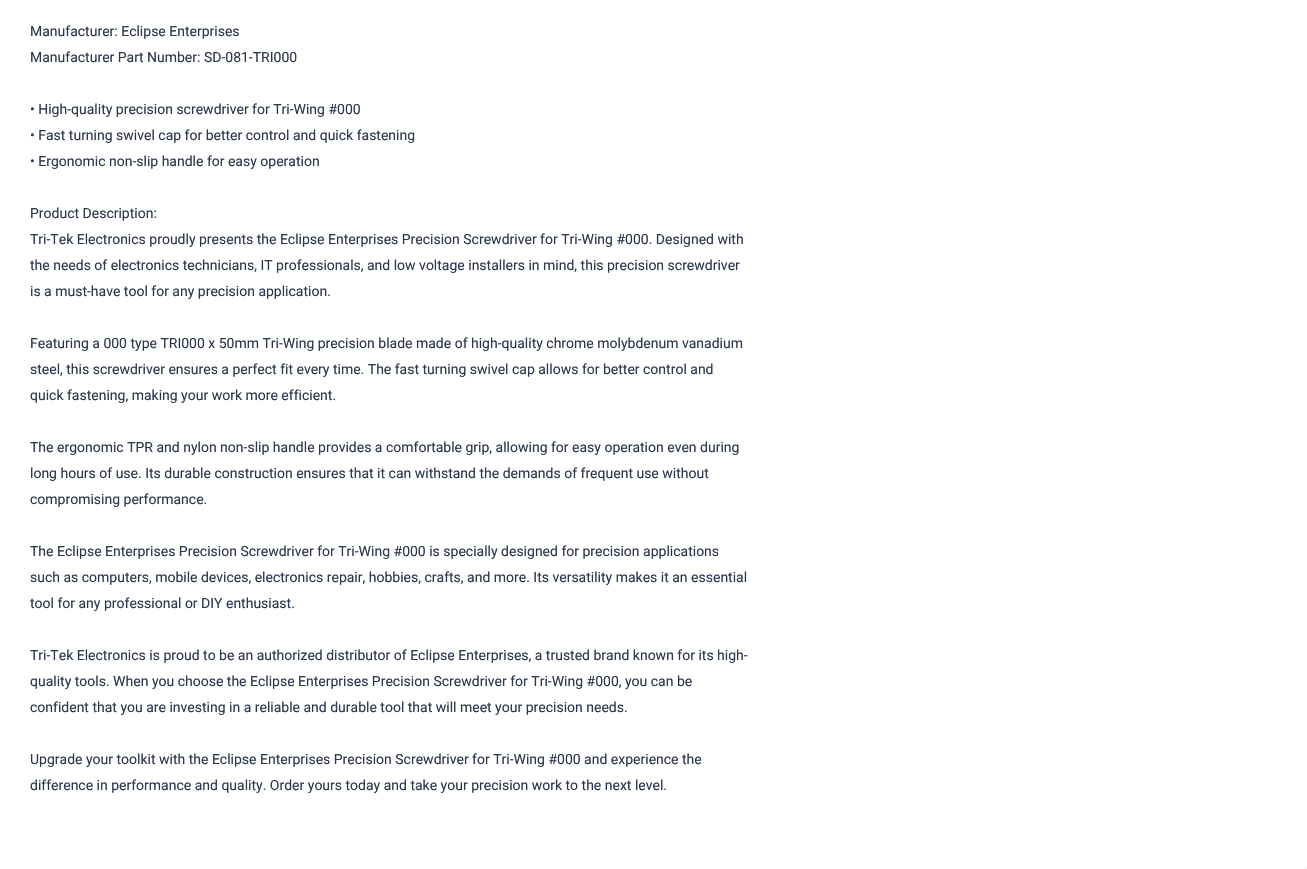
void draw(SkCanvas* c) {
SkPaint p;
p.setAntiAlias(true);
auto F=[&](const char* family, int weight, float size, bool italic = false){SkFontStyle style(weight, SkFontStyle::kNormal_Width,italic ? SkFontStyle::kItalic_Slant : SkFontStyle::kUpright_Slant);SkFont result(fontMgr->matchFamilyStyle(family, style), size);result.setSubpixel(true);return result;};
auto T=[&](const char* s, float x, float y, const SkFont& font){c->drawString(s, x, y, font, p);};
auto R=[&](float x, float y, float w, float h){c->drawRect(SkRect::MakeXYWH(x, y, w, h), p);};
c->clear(0xffffffff);
auto f1 = F("Roboto",400,14);
p.setColor(0xff2c374d);
T("Manufacturer: Eclipse Enterprises",30,36,f1);
T("Manufacturer Part Number: SD-081-TRI000",30,62,f1);
T("• High-quality precision screwdriver for Tri-Wing #000",30,114,f1);
T("• Fast turning swivel cap for better control and quick fastening",30,140,f1);
T("• Ergonomic non-slip handle for easy operation",30,166,f1);
T("Product Description:",30,218,f1);
T("Tri-Tek Electronics proudly presents the Eclipse Enterprises Precision Screwdriver for Tri-Wing #000. Designed with",30,244,f1);
T("the needs of electronics technicians, IT professionals, and low voltage installers in mind, this precision screwdriver",30,270,f1);
T("is a must-have tool for any precision application.",30,296,f1);
T("Featuring a 000 type TRI000 x 50mm Tri-Wing precision blade made of high-quality chrome molybdenum vanadium",30,348,f1);
T("steel, this screwdriver ensures a perfect fit every time. The fast turning swivel cap allows for better control and",30,374,f1);
T("quick fastening, making your work more efficient.",30,400,f1);
T("The ergonomic TPR and nylon non-slip handle provides a comfortable grip, allowing for easy operation even during",30,452,f1);
T("long hours of use. Its durable construction ensures that it can withstand the demands of frequent use without",30,478,f1);
T("compromising performance.",30,504,f1);
T("The Eclipse Enterprises Precision Screwdriver for Tri-Wing #000 is specially designed for precision applications",30,556,f1);
T("such as computers, mobile devices, electronics repair, hobbies, crafts, and more. Its versatility makes it an essential",30,582,f1);
T("tool for any professional or DIY enthusiast.",30,608,f1);
T("Tri-Tek Electronics is proud to be an authorized distributor of Eclipse Enterprises, a trusted brand known for its high-",30,660,f1);
T("quality tools. When you choose the Eclipse Enterprises Precision Screwdriver for Tri-Wing #000, you can be",30,686,f1);
T("confident that you are investing in a reliable and durable tool that will meet your precision needs.",30,712,f1);
T("Upgrade your toolkit with the Eclipse Enterprises Precision Screwdriver for Tri-Wing #000 and experience the",30,764,f1);
T("difference in performance and quality. Order yours today and take your precision work to the next level.",30,790,f1);
p.setColor(0xfff5f5f5);
R(1305,867,2,2);
}
